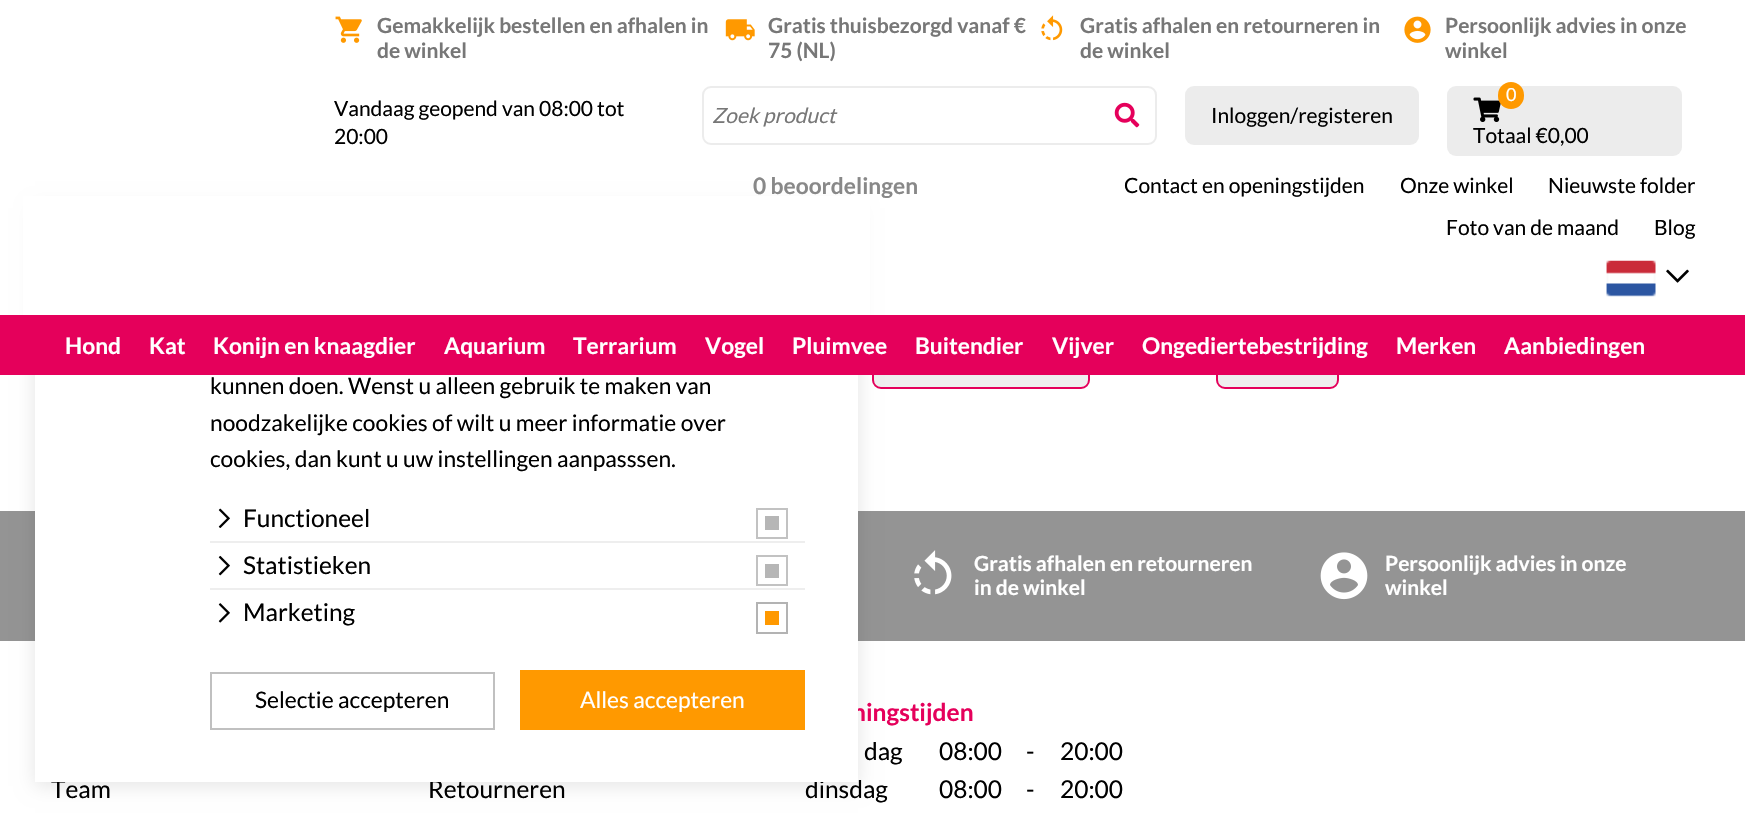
void draw(SkCanvas* c) {
SkPaint p;
p.setAntiAlias(true);
auto F=[&](const char* family, int weight, float size, bool italic = false){SkFontStyle style(weight, SkFontStyle::kNormal_Width,italic ? SkFontStyle::kItalic_Slant : SkFontStyle::kUpright_Slant);SkFont result(fontMgr->matchFamilyStyle(family, style), size);result.setSubpixel(true);return result;};
auto T=[&](const char* s, float x, float y, const SkFont& font){c->drawString(s, x, y, font, p);};
auto R=[&](float x, float y, float w, float h){c->drawRect(SkRect::MakeXYWH(x, y, w, h), p);};
auto Q=[&](float x, float y, float w, float h, float radius){c->drawRoundRect(SkRect::MakeXYWH(x, y, w, h), radius, radius, p);};
auto I=[&](const char* path, float x, float y, float w, float h){auto image = SkImages::DeferredFromEncodedData(SkData::MakeFromFileName(path));c->drawImageRect(image, SkRect::MakeXYWH(x, y, w, h), SkSamplingOptions());};
c->clear(0xffffffff);
p.setColor(0xffefefef);
c->drawRoundRect(SkRect::MakeXYWH(873,339,216,49),8,8,p);
p.setStroke(true);
p.setStrokeWidth(2);
p.setColor(0xffe5005b);
c->drawRoundRect(SkRect::MakeXYWH(873,339,216,49),8,8,p);
p.setStroke(false);
p.setColor(0xff949494);
R(0,511,1745,130);
p.setColor(0x1a000000);
p.setMaskFilter(SkMaskFilter::MakeBlur(kNormal_SkBlurStyle, 9));
c->drawRect(SkRect::MakeXYWH(35,208,823,578),p);
p.setMaskFilter(nullptr);
p.setColor(0xffffffff);
R(23,196,847,119);
I("1.png",335,16,27,27);
auto f1 = F("Lato",700,21);
p.setColor(0xff777777);
T("Gemakkelijk bestellen en afhalen in",377,33,f1);
T("de winkel",377,58,f1);
I("2.png",725,19,30,22);
T("Gratis thuisbezorgd vanaf €",768,33,f1);
T("75 (NL)",768,58,f1);
I("3.png",1041,15,22,26);
T("Gratis afhalen en retourneren in",1080,33,f1);
T("de winkel",1080,58,f1);
I("4.png",1404,16,27,27);
T("Persoonlijk advies in onze",1445,33,f1);
T("winkel",1445,58,f1);
auto f2 = F("Lato",400,21);
p.setColor(0xff000000);
T("Vandaag geopend van 08:00 tot",334,116,f2);
T("20:00",334,144,f2);
p.setStroke(true);
p.setColor(0xffececec);
c->drawRoundRect(SkRect::MakeXYWH(703,87,453,57),8,8,p);
auto f3 = F("Lato",400,21,true);
p.setStroke(false);
p.setColor(0xff777777);
T("Zoek product",712,123,f3);
I("5.png",1114,102,26,26);
p.setColor(0xffececec);
Q(1185,86,234,59,9);
p.setColor(0xff000000);
T("Inloggen/registeren",1211,123,f2);
p.setColor(0xffececec);
Q(1447,86,235,70,9);
I("6.png",1473,97,28,25);
p.setColor(0xffff9900);
Q(1498,82,26,27,13);
auto f4 = F("Lato",400,18);
p.setColor(0xffffffff);
T("0",1506,101,f4);
p.setColor(0xff000000);
T("Totaal €0,00",1473,143,f2);
auto f5 = F("Lato",700,22.75);
p.setColor(0xff888888);
T("0 beoordelingen",753,194,f5);
p.setColor(0xff000000);
T("Contact en openingstijden",1124,193,f2);
T("Onze winkel",1400,193,f2);
T("Nieuwste folder",1548,193,f2);
T("Foto van de maand",1446,235,f2);
T("Blog",1654,235,f2);
I("7.png",1606,260,50,37);
I("8.png",1666,269,23,14);
p.setColor(0xffefefef);
c->drawRoundRect(SkRect::MakeXYWH(1217,339,121,49),8,8,p);
p.setStroke(true);
p.setColor(0xffe5005b);
c->drawRoundRect(SkRect::MakeXYWH(1217,339,121,49),8,8,p);
p.setStroke(false);
R(0,315,1745,60);
p.setColor(0xffffffff);
T("Hond",65,354,f5);
T("Kat",149,354,f5);
T("Konijn en knaagdier",213,354,f5);
T("Aquarium",444,354,f5);
T("Terrarium",573,354,f5);
T("Vogel",705,354,f5);
T("Pluimvee",792,354,f5);
T("Buitendier",915,354,f5);
T("Vijver",1052,354,f5);
T("Ongediertebestrijding",1142,354,f5);
T("Merken",1396,354,f5);
T("Aanbiedingen",1504,354,f5);
I("9.png",914,550,38,45);
T("Gratis afhalen en retourneren",974,571,f1);
T("in de winkel",974,595,f1);
I("10.png",1320,552,48,48);
T("Persoonlijk advies in onze",1385,571,f1);
T("winkel",1385,595,f1);
auto f6 = F("Lato",400,24.5);
p.setColor(0xff000000);
T("Team",51,798,f6);
T("Retourneren",428,798,f6);
auto f7 = F("Lato",700,24.5);
p.setColor(0xffe5005b);
T("ningstijden",852,721,f7);
p.setColor(0xff000000);
T("dag",864,760,f6);
T("08:00",939,760,f6);
T("-",1026,760,f6);
T("20:00",1060,760,f6);
T("dinsdag",805,798,f6);
T("08:00",939,798,f6);
T("-",1026,798,f6);
T("20:00",1060,798,f6);
p.setColor(0xffffffff);
R(35,375,823,407);
auto f8 = F("Lato",400,22.75);
p.setColor(0xff000000);
T("kunnen doen. Wenst u alleen gebruik te maken van",210,394,f8);
T("noodzakelijke cookies of wilt u meer informatie over",210,431,f8);
T("cookies, dan kunt u uw instellingen aanpasssen.",210,467,f8);
I("11.png",218,508,12,20);
T("Functioneel",243,527,f6);
p.setStroke(true);
p.setColor(0xffc2c2c2);
c->drawRect(SkRect::MakeXYWH(757,509,30,29),p);
p.setStroke(false);
p.setColor(0xffb6b6b6);
R(765,516,14,14);
p.setColor(0xffeeeeee);
R(210,541,595,2);
I("12.png",218,555,12,21);
p.setColor(0xff000000);
T("Statistieken",243,574,f6);
p.setStroke(true);
p.setColor(0xffc2c2c2);
c->drawRect(SkRect::MakeXYWH(757,556,30,29),p);
p.setStroke(false);
p.setColor(0xffb6b6b6);
R(765,564,14,14);
p.setColor(0xffeeeeee);
R(210,588,595,2);
I("13.png",218,603,12,20);
p.setColor(0xff000000);
T("Marketing",243,621,f6);
p.setStroke(true);
p.setColor(0xffb3b3b3);
c->drawRect(SkRect::MakeXYWH(757,603,30,30),p);
p.setStroke(false);
p.setColor(0xffff9900);
R(765,611,14,14);
p.setStroke(true);
p.setColor(0xffc0c0c0);
c->drawRect(SkRect::MakeXYWH(211,673,283,56),p);
p.setStroke(false);
p.setColor(0xff000000);
T("Selectie accepteren",255,708,f8);
p.setColor(0xffff9900);
R(520,670,285,60);
p.setColor(0xffffffff);
T("Alles accepteren",580,708,f8);
}
